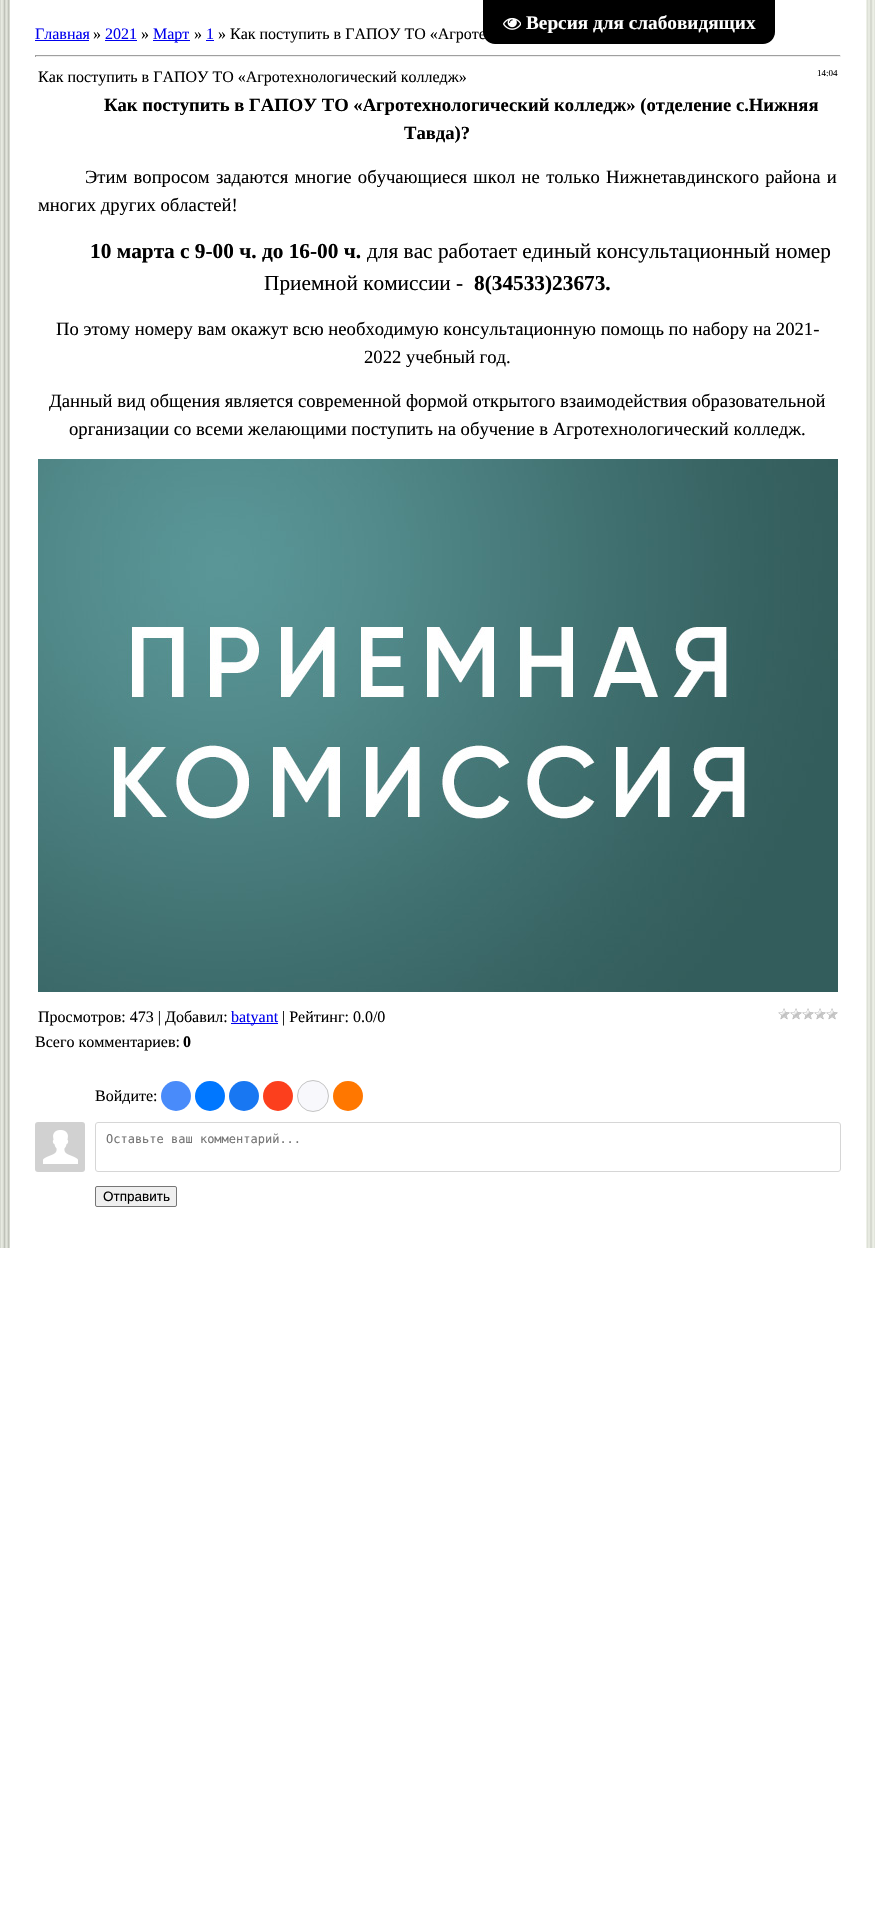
void draw(SkCanvas* c) {
SkPaint p;
p.setAntiAlias(true);
auto F=[&](const char* family, int weight, float size, bool italic = false){SkFontStyle style(weight, SkFontStyle::kNormal_Width,italic ? SkFontStyle::kItalic_Slant : SkFontStyle::kUpright_Slant);SkFont result(fontMgr->matchFamilyStyle(family, style), size);result.setSubpixel(true);return result;};
auto T=[&](const char* s, float x, float y, const SkFont& font){c->drawString(s, x, y, font, p);};
auto L=[&](const char* s, float x, float y, const SkFont& font, const SkPaint& ink, float letter, float word){std::vector<SkGlyphID> glyphs(font.countText(s, strlen(s), SkTextEncoding::kUTF8));std::vector<float> xs(glyphs.size());font.textToGlyphs(s, strlen(s), SkTextEncoding::kUTF8, glyphs);font.getXPos(glyphs, xs, x);float extra = 0;for (size_t i = 0; i < glyphs.size(); i++) {xs[i] += extra;extra += letter + word * (glyphs[i] == font.unicharToGlyph(' '));}c->drawTextBlob(SkTextBlob::MakeFromPosHGlyphs(glyphs, xs, y, font), 0, 0, ink);};
auto R=[&](float x, float y, float w, float h){c->drawRect(SkRect::MakeXYWH(x, y, w, h), p);};
auto I=[&](const char* path, float x, float y, float w, float h){auto image = SkImages::DeferredFromEncodedData(SkData::MakeFromFileName(path));c->drawImageRect(image, SkRect::MakeXYWH(x, y, w, h), SkSamplingOptions());};
auto P=[&](const char* data, bool evenOdd = false){SkPath result = *SkParsePath::FromSVGString(data);if (evenOdd) result.setFillType(SkPathFillType::kEvenOdd);return result;};
c->clear(0xffffffff);
p.setColor(0xff000000);
c->drawPath(P("M483 0h292v32c0 6.5-5.5 12-12 12h-268c-6.5 0-12-5.5-12-12z"),p);
I("1.png",503,17,18,13);
auto f1 = F("Liberation Serif",700,19.25);
p.setColor(0xffffffff);
T("Версия для слабовидящих",526,29,f1);
I("2.png",0,0,10,1248);
auto f2 = F("Liberation Serif",400,16);
p.setColor(0xff0000ee);
T("Главная",35,39,f2);
R(35,40,54,1);
p.setColor(0xff000000);
T("»",93,39,f2);
p.setColor(0xff0000ee);
T("2021",105,39,f2);
R(105,40,32,1);
p.setColor(0xff000000);
T("»",141,39,f2);
p.setColor(0xff0000ee);
R(153,40,37,1);
T("Март",153,39,f2);
p.setColor(0xff000000);
T("»",194,39,f2);
p.setColor(0xff0000ee);
T("1",206,39,f2);
R(206,40,8,1);
p.setColor(0xff000000);
T("» Как поступить в ГАПОУ ТО «Агроте",218,39,f2);
p.setColor(0xff9f9f9f);
R(35,55,806,1);
p.setColor(0xffeeeeee);
R(840,55,1,2);
R(35,56,806,1);
p.setColor(0xff9f9f9f);
R(35,55,1,2);
p.setColor(0xff000000);
T("Как поступить в ГАПОУ ТО «Агротехнологический колледж»",38,82,f2);
auto f3 = F("Liberation Serif",400,9);
T("14:04",817,76,f3);
auto f4 = F("Liberation Serif",700,18.65);
T("Как поступить в ГАПОУ ТО «Агротехнологический колледж» (отделение с.Нижняя",104,111,f4);
T("Тавда)?",404,139,f4);
auto f5 = F("Liberation Serif",400,18.65);
L("Этим вопросом задаются многие обучающиеся школ не только Нижнетавдинского района и",85,183,f5,p,0,1.6);
T("многих других областей!",38,211,f5);
auto f6 = F("Liberation Serif",700,21.3);
T("10 марта с 9-00 ч. до 16-00 ч.",90,258,f6);
auto f7 = F("Liberation Serif",400,21.3);
T("для вас работает единый консультационный номер",367,258,f7);
T("Приемной комиссии -",264,290,f7);
T("8(34533)23673.",474,290,f6);
T("По этому номеру вам окажут всю необходимую консультационную помощь по набору на 2021-",56,335,f5);
T("2022 учебный год.",364,363,f5);
T("Данный вид общения является современной формой открытого взаимодействия образовательной",49,407,f5);
T("организации со всеми желающими поступить на обучение в Агротехнологический колледж.",69,435,f5);
I("3.png",38,459,800,533);
T("Просмотров: 473 | Добавил:",38,1022,f2);
p.setColor(0xff0000ee);
R(231,1023,47,1);
T("batyant",231,1022,f2);
p.setColor(0xff000000);
T("| Рейтинг: 0.0/0",282,1022,f2);
I("4.png",778,1008,60,12);
T("Всего комментариев:",35,1047,f2);
auto f8 = F("Liberation Serif",700,16);
T("0",183,1047,f8);
T("Войдите:",95,1101,f2);
p.setColor(0xff498bfa);
c->drawCircle(176,1096,15,p);
p.setColor(0xff0077ff);
c->drawCircle(210,1096,15,p);
p.setColor(0xff1877f2);
c->drawCircle(244,1096,15,p);
p.setColor(0xfffc3f1d);
c->drawCircle(278,1096,15,p);
p.setColor(0xfff8f8fc);
c->drawCircle(313,1096,15.5,p);
p.setStroke(true);
p.setStrokeWidth(1);
p.setColor(0xffc4c4c4);
c->drawCircle(313,1096,15.5,p);
p.setStroke(false);
p.setColor(0xffff7700);
c->drawCircle(348,1096,15,p);
I("5.png",35,1122,50,50);
p.setStroke(true);
p.setColor(0xffd6d6d6);
c->drawRoundRect(SkRect::MakeXYWH(95.5,1122.5,745,49),2.5,2.5,p);
auto f9 = F("DejaVu Sans Mono",400,12);
p.setStroke(false);
p.setColor(0xff757575);
T("Оставьте ваш комментарий...",106,1143,f9);
p.setColor(0xffefefef);
c->drawRoundRect(SkRect::MakeXYWH(95.5,1186.5,81,20),1.5,1.5,p);
p.setStroke(true);
p.setColor(0xff767676);
c->drawRoundRect(SkRect::MakeXYWH(95.5,1186.5,81,20),1.5,1.5,p);
auto f10 = F("Liberation Sans",400,13.5);
p.setStroke(false);
p.setColor(0xff000000);
T("Отправить",103,1201,f10);
I("6.png",866,0,9,1248);
}
